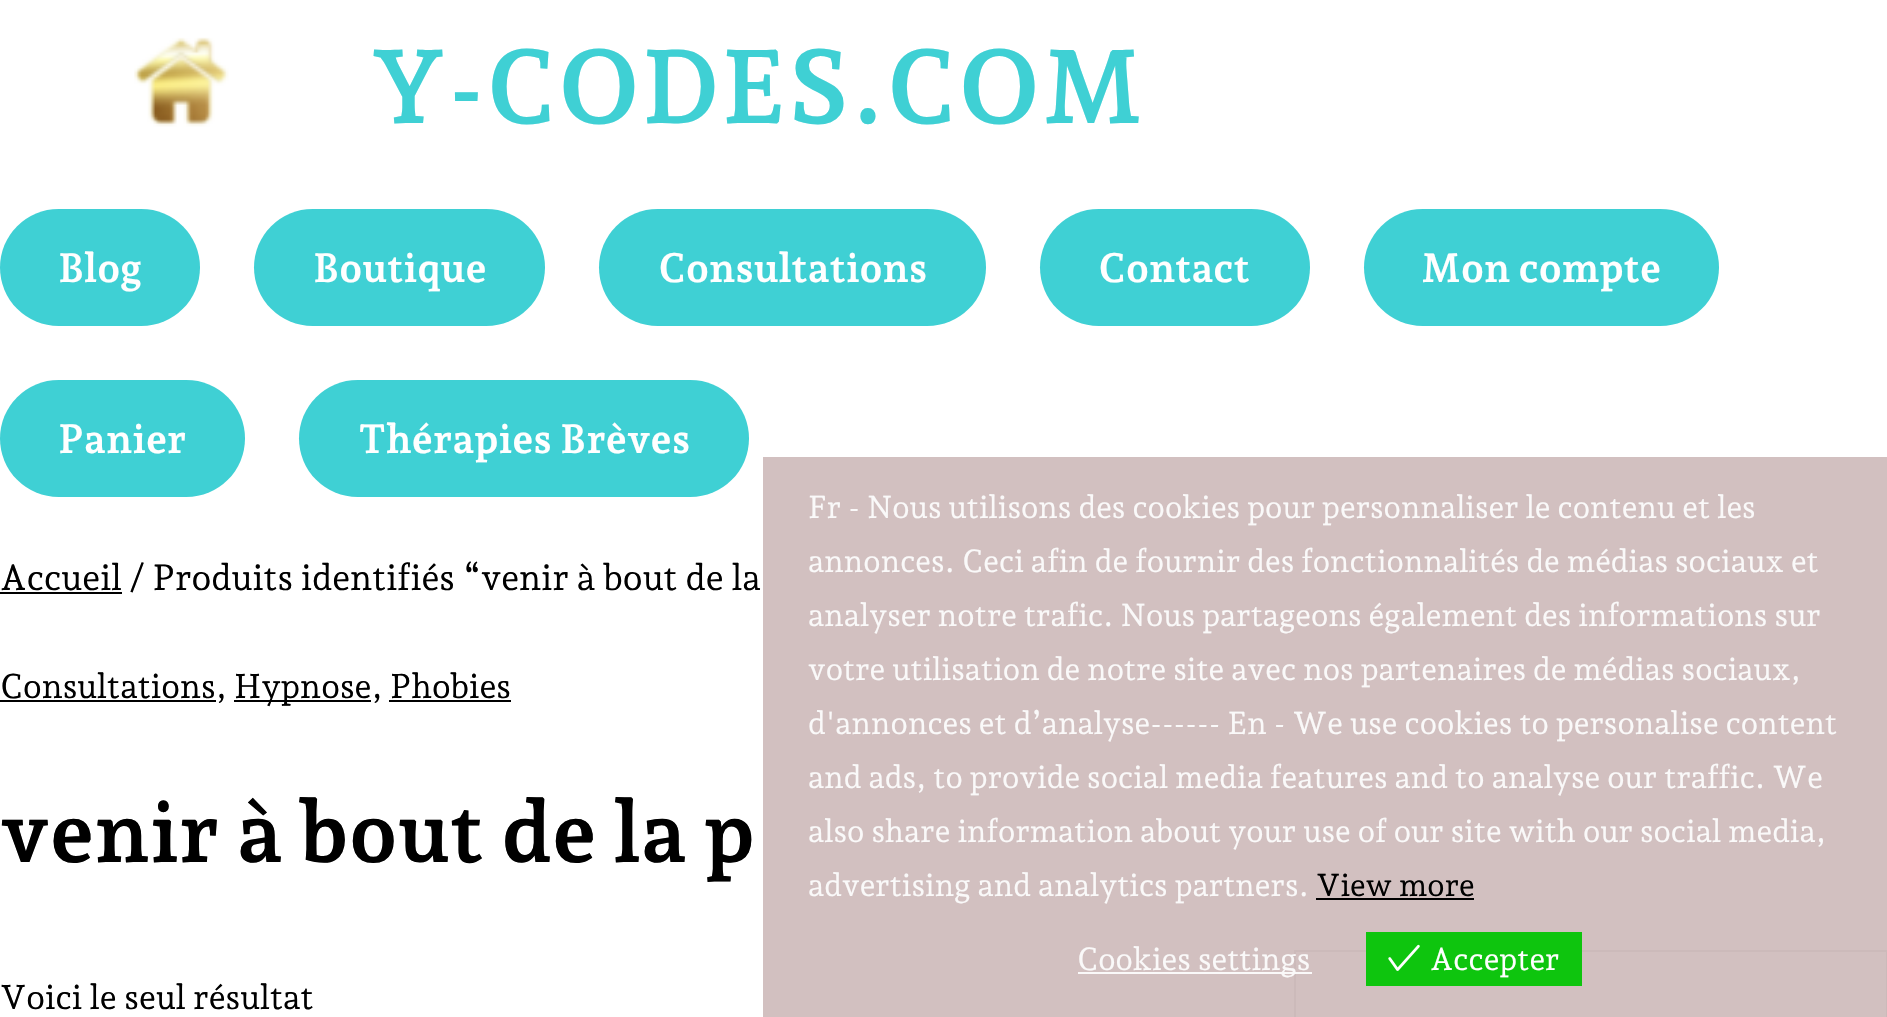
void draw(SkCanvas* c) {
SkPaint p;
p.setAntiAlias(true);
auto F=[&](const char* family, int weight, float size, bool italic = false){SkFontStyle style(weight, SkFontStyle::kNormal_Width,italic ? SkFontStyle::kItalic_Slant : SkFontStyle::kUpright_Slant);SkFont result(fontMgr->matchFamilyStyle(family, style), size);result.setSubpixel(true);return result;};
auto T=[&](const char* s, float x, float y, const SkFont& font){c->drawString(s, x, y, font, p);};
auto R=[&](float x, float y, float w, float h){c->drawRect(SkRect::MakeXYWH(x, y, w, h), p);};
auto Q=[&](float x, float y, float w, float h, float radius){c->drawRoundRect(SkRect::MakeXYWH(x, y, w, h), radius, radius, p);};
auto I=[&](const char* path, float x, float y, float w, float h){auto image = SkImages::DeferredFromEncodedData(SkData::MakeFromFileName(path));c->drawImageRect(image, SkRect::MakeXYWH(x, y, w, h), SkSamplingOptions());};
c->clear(0xffffffff);
I("1.png",134,37,95,90);
auto f1 = F("Andada Pro",700,103.5);
p.setColor(0xff3fd0d4);
T("Y-CODES.COM",369,123,f1);
Q(0,209,200,117,58.5);
auto f2 = F("Andada Pro",700,40.5);
p.setColor(0xffffffff);
T("Blog",58,282,f2);
p.setColor(0xff3fd0d4);
Q(254,209,291,117,58.5);
p.setColor(0xffffffff);
T("Boutique",313,282,f2);
p.setColor(0xff3fd0d4);
Q(599,209,387,117,58.5);
p.setColor(0xffffffff);
T("Consultations",658,282,f2);
p.setColor(0xff3fd0d4);
Q(1040,209,270,117,58.5);
p.setColor(0xffffffff);
T("Contact",1098,282,f2);
p.setColor(0xff3fd0d4);
Q(1364,209,355,117,58.5);
p.setColor(0xffffffff);
T("Mon compte",1421,282,f2);
p.setColor(0xff3fd0d4);
Q(0,380,245,117,58.5);
p.setColor(0xffffffff);
T("Panier",58,453,f2);
p.setColor(0xff3fd0d4);
Q(299,380,450,117,58.5);
p.setColor(0xffffffff);
T("Thérapies Brèves",358,453,f2);
p.setColor(0xff000000);
R(0,592,122,2);
auto f3 = F("Andada Pro",400,36);
T("Accueil / Produits identifiés “venir à bout de la",0,590,f3);
R(0,700,216,2);
auto f4 = F("Andada Pro",400,34);
T("Consultations,",0,698,f4);
R(234,700,137,2);
T("Hypnose, Phobies",234,698,f4);
R(389,700,122,2);
auto f5 = F("Andada Pro",700,85.5);
T("venir à bout de la p",0,862,f5);
T("Voici le seul résultat",0,1009,f4);
p.setStroke(true);
p.setStrokeWidth(2);
p.setColor(0xffebebeb);
c->drawRect(SkRect::MakeXYWH(1295,951,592,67),p);
p.setStroke(false);
p.setColor(0xb3bfa5a5);
R(763,457,1124,560);
auto f6 = F("Andada Pro",400,31.5);
p.setColor(0xfffaf9f9);
T("Fr - Nous utilisons des cookies pour personnaliser le contenu et les",808,518,f6);
T("annonces. Ceci afin de fournir des fonctionnalités de médias sociaux et",808,572,f6);
T("analyser notre trafic. Nous partageons également des informations sur",808,626,f6);
T("votre utilisation de notre site avec nos partenaires de médias sociaux,",808,680,f6);
T("d'annonces et d’analyse------ En - We use cookies to personalise content",808,734,f6);
T("and ads, to provide social media features and to analyse our traffic. We",808,788,f6);
T("also share information about your use of our site with our social media,",808,842,f6);
T("advertising and analytics partners.",808,896,f6);
p.setColor(0xff000000);
T("View more",1316,896,f6);
R(1316,898,158,2);
p.setColor(0xfffaf9f9);
R(1078,972,234,2);
T("Cookies settings",1077,970,f6);
p.setColor(0xff0ec50e);
R(1366,932,216,54);
I("2.png",1388,944,32,27);
p.setColor(0xffffffff);
T("Accepter",1430,970,f6);
}
